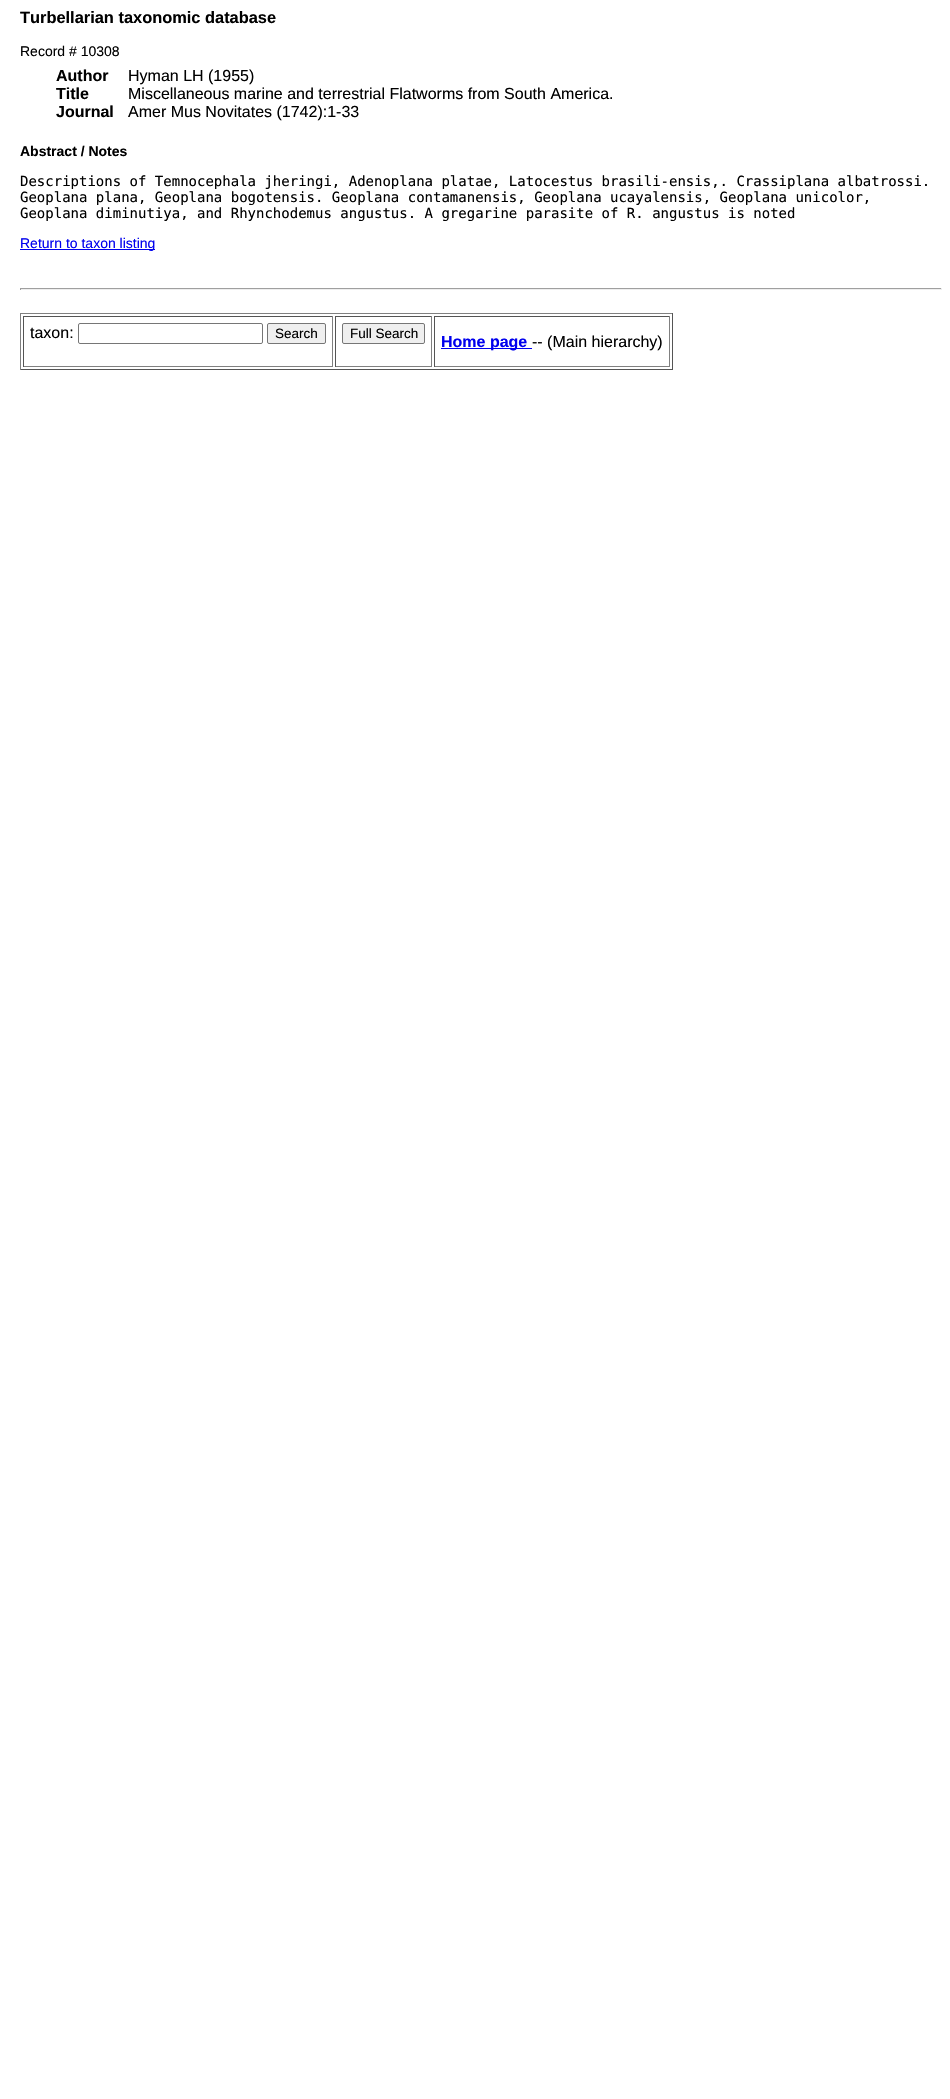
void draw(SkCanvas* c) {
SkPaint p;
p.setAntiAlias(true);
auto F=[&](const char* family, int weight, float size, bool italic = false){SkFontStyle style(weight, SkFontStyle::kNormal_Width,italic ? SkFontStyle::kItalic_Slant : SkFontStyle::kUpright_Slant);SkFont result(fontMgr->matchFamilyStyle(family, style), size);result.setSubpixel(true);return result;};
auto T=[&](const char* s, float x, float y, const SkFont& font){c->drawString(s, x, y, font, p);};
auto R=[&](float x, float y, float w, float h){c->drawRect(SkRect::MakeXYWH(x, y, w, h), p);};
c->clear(0xffffffff);
auto f1 = F("Liberation Sans",700,16.4);
p.setColor(0xff000000);
T("Turbellarian taxonomic database",20,23,f1);
auto f2 = F("Liberation Sans",400,14);
T("Record # 10308",20,56,f2);
auto f3 = F("Liberation Sans",700,16);
T("Author",56,81,f3);
T("Title",56,99,f3);
T("Journal",56,117,f3);
auto f4 = F("Liberation Sans",400,16);
T("Hyman LH (1955)",128,81,f4);
T("Miscellaneous marine and terrestrial Flatworms from South America.",128,99,f4);
T("Amer Mus Novitates (1742):1-33",128,117,f4);
auto f5 = F("Liberation Sans",700,14);
T("Abstract / Notes",20,156,f5);
auto f6 = F("DejaVu Sans Mono",400,14);
T("Descriptions of Temnocephala jheringi, Adenoplana platae, Latocestus brasili-ensis,. Crassiplana albatrossi.",20,186,f6);
T("Geoplana plana, Geoplana bogotensis. Geoplana contamanensis, Geoplana ucayalensis, Geoplana unicolor,",20,202,f6);
T("Geoplana diminutiya, and Rhynchodemus angustus. A gregarine parasite of R. angustus is noted",20,218,f6);
p.setColor(0xff0000ee);
R(20,249,135,1);
T("Return to taxon listing",20,248,f2);
p.setColor(0xff9f9f9f);
R(20,288,922,1);
p.setColor(0xffeeeeee);
R(941,288,1,2);
R(20,289,922,1);
p.setColor(0xff9f9f9f);
R(20,288,1,2);
p.setColor(0xff808080);
R(20,313,653,1);
p.setColor(0xff555555);
R(672,313,1,57);
R(20,369,653,1);
p.setColor(0xff808080);
R(20,313,1,57);
p.setColor(0xff555555);
R(23,316,310,1);
p.setColor(0xff808080);
R(332,316,1,51);
R(23,366,310,1);
p.setColor(0xff555555);
R(23,316,1,51);
p.setColor(0xff000000);
T("taxon:",30,338,f4);
p.setStroke(true);
p.setStrokeWidth(1);
p.setColor(0xff767676);
c->drawRoundRect(SkRect::MakeXYWH(78.5,323.5,184,20),1.5,1.5,p);
p.setStroke(false);
p.setColor(0xffefefef);
c->drawRoundRect(SkRect::MakeXYWH(267.5,323.5,58,20),1.5,1.5,p);
p.setStroke(true);
p.setColor(0xff767676);
c->drawRoundRect(SkRect::MakeXYWH(267.5,323.5,58,20),1.5,1.5,p);
auto f7 = F("Liberation Sans",400,13.5);
p.setStroke(false);
p.setColor(0xff000000);
T("Search",275,338,f7);
p.setColor(0xff555555);
R(335,316,97,1);
p.setColor(0xff808080);
R(431,316,1,51);
R(335,366,97,1);
p.setColor(0xff555555);
R(335,316,1,51);
p.setColor(0xffefefef);
c->drawRoundRect(SkRect::MakeXYWH(342.5,323.5,82,20),1.5,1.5,p);
p.setStroke(true);
p.setColor(0xff767676);
c->drawRoundRect(SkRect::MakeXYWH(342.5,323.5,82,20),1.5,1.5,p);
p.setStroke(false);
p.setColor(0xff000000);
T("Full Search",350,338,f7);
p.setColor(0xff555555);
R(434,316,236,1);
p.setColor(0xff808080);
R(669,316,1,51);
R(434,366,236,1);
p.setColor(0xff555555);
R(434,316,1,51);
p.setColor(0xff0000ee);
R(441,348,91,1);
T("Home page",441,347,f3);
p.setColor(0xff000000);
T("-- (Main hierarchy)",532,347,f4);
}
